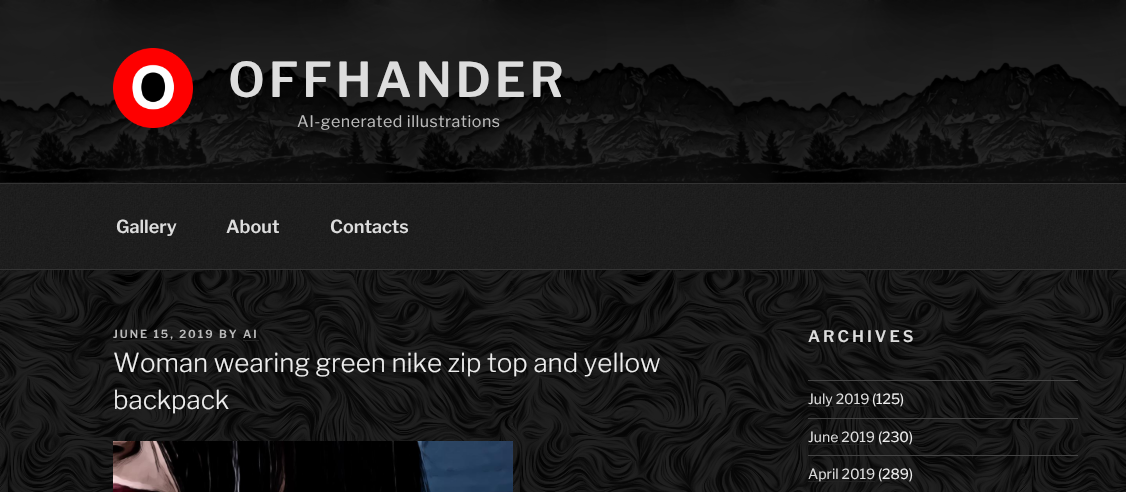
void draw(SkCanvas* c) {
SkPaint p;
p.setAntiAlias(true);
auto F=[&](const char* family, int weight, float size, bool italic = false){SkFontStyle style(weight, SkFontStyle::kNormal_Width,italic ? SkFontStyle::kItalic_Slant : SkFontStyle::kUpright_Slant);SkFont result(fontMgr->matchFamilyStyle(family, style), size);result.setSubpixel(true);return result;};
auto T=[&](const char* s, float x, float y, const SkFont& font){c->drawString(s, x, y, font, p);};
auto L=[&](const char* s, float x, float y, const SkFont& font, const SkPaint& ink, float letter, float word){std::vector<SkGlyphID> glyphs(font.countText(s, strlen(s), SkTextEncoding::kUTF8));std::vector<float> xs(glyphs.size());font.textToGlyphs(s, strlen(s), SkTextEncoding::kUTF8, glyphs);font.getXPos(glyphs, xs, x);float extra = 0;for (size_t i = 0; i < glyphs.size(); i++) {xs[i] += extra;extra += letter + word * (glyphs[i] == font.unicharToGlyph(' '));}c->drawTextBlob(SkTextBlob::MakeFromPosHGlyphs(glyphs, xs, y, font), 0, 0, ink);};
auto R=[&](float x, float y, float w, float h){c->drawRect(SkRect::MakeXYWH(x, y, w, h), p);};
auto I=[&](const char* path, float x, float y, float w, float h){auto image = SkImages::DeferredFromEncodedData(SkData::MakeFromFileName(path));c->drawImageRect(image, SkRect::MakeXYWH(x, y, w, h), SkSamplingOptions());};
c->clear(0xffffffff);
I("1.png",0,0,1126,183);
I("2.png",113,48,80,80);
auto f1 = F("Libre Franklin",600,48);
p.setColor(0xffdddddd);
L("OFFHANDER",228,97,f1,p,3.75,0);
auto f2 = F("Libre Franklin",400,16);
p.setColor(0xffbbbbbb);
L("AI-generated illustrations",297,127,f2,p,.5,0);
I("3.png",0,184,1126,85);
p.setColor(0xff333333);
R(0,183,1126,1);
R(0,269,1126,1);
auto f3 = F("Libre Franklin",600,18);
p.setColor(0xffdddddd);
T("Gallery",116,233,f3);
T("About",226,233,f3);
T("Contacts",330,233,f3);
I("4.png",0,270,1126,222);
auto f4 = F("Libre Franklin",600,11);
p.setColor(0xffbbbbbb);
L("JUNE 15, 2019 BY AI",113,338,f4,p,2,0);
p.setColor(0xff222222);
R(113,340,102,1);
R(243,340,16,1);
auto f5 = F("Libre Franklin",300,26);
p.setColor(0xffeeeeee);
T("Woman wearing green nike zip top and yellow",113,372,f5);
T("backpack",113,409,f5);
I("5.png",113,441,400,51);
auto f6 = F("Libre Franklin",600,16);
p.setColor(0xffdddddd);
L("ARCHIVES",808,342,f6,p,3,0);
p.setColor(0xff444444);
R(808,380,270,1);
R(808,418,270,1);
p.setColor(0xff222222);
R(808,406,61,1);
auto f7 = F("Libre Franklin",400,14);
p.setColor(0xffdddddd);
T("July 2019",808,404,f7);
p.setColor(0xffeeeeee);
T("(125)",872,404,f7);
p.setColor(0xff444444);
R(808,455,270,1);
p.setColor(0xffdddddd);
T("June 2019",808,442,f7);
p.setColor(0xff222222);
R(808,444,67,1);
p.setColor(0xffeeeeee);
T("(230)",878,442,f7);
p.setColor(0xff222222);
R(808,481,67,1);
p.setColor(0xffdddddd);
T("April 2019",808,479,f7);
p.setColor(0xffeeeeee);
T("(289)",878,479,f7);
}
